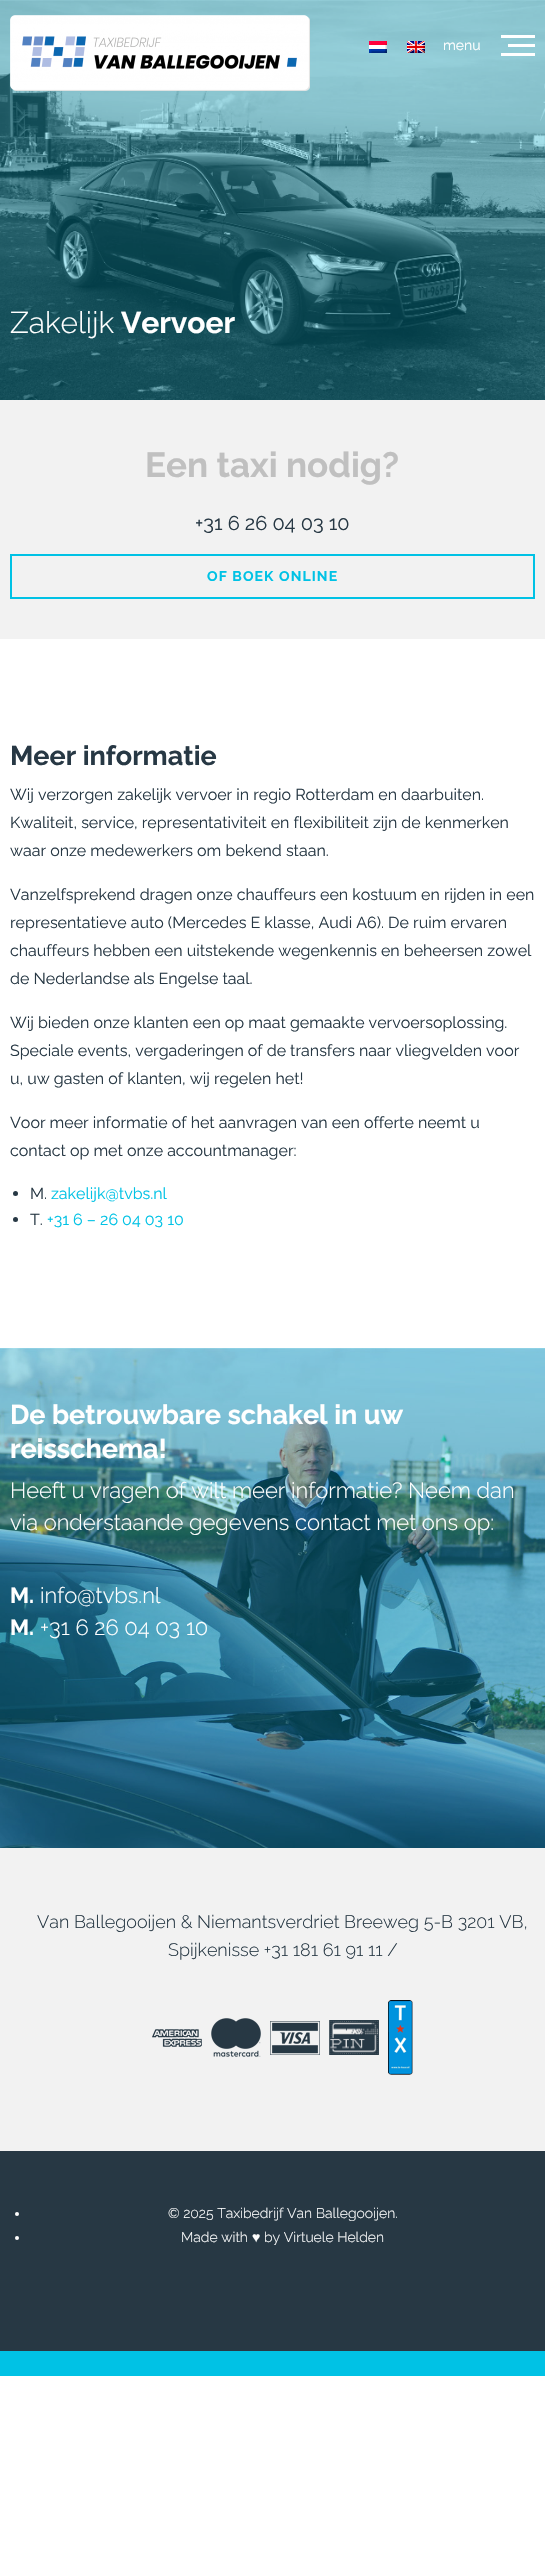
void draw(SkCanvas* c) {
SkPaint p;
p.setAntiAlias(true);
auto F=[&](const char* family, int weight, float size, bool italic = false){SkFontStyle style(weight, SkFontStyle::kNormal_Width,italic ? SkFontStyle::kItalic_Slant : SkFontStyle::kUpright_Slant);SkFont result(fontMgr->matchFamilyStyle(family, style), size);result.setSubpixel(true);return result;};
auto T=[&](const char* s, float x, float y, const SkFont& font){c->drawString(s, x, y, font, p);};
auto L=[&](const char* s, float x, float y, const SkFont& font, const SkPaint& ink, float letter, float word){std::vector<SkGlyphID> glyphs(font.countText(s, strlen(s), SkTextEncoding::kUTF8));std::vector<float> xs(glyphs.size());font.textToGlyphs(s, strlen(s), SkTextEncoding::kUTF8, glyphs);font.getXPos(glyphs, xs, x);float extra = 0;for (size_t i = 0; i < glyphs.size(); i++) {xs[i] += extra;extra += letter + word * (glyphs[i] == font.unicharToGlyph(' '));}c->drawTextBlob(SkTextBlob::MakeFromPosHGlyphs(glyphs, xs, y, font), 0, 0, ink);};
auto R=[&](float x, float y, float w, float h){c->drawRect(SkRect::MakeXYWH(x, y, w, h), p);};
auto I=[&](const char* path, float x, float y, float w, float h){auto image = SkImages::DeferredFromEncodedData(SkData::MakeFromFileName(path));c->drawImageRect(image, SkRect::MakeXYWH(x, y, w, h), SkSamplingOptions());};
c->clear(0xffffffff);
I("1.png",0,0,545,400);
I("2.png",10,15,300,76);
I("3.png",369,41,18,12);
I("4.png",407,41,18,12);
auto f1 = F("Raleway",400,14);
p.setColor(0xffffffff);
T("menu",443,50,f1);
R(501,35,34,3);
R(508,44,27,3);
R(501,53,34,3);
auto f2 = F("Raleway",300,30);
T("Zakelijk",10,333,f2);
auto f3 = F("Raleway",700,30);
T("Vervoer",121,333,f3);
p.setColor(0xfff2f2f2);
R(0,400,545,239);
auto f4 = F("Raleway",700,35);
p.setColor(0xffc0c0c0);
T("Een taxi nodig?",145,477,f4);
auto f5 = F("Raleway",400,20);
p.setColor(0xff273844);
T("+31 6 26 04 03 10",195,530,f5);
p.setStroke(true);
p.setStrokeWidth(2);
p.setColor(0xff00c2e5);
c->drawRect(SkRect::MakeXYWH(11,555,523,43),p);
auto f6 = F("Raleway",700,14);
p.setStroke(false);
L("OF BOEK ONLINE",207,581,f6,p,1.1,0);
auto f7 = F("Raleway",700,27);
p.setColor(0xff273844);
T("Meer informatie",10,765,f7);
auto f8 = F("Raleway",400,16);
T("Wij verzorgen zakelijk vervoer in regio Rotterdam en daarbuiten.",10,800,f8);
T("Kwaliteit, service, representativiteit en flexibiliteit zijn de kenmerken",10,828,f8);
T("waar onze medewerkers om bekend staan.",10,856,f8);
T("Vanzelfsprekend dragen onze chauffeurs een kostuum en rijden in een",10,900,f8);
T("representatieve auto (Mercedes E klasse, Audi A6). De ruim ervaren",10,928,f8);
T("chauffeurs hebben een uitstekende wegenkennis en beheersen zowel",10,956,f8);
T("de Nederlandse als Engelse taal.",10,984,f8);
T("Wij bieden onze klanten een op maat gemaakte vervoersoplossing.",10,1028,f8);
T("Speciale events, vergaderingen of de transfers naar vliegvelden voor",10,1056,f8);
T("u, uw gasten of klanten, wij regelen het!",10,1084,f8);
T("Voor meer informatie of het aanvragen van een offerte neemt u",10,1128,f8);
T("contact op met onze accountmanager:",10,1156,f8);
c->drawCircle(15.5,1193.5,2.5,p);
T("M.",30,1199,f8);
p.setColor(0xff00c2e5);
T("zakelijk@tvbs.nl",51,1199,f8);
p.setColor(0xff273844);
c->drawCircle(15.5,1219.5,2.5,p);
T("T.",30,1225,f8);
p.setColor(0xff00c2e5);
T("+31 6 – 26 04 03 10",47,1225,f8);
I("5.png",0,1348,545,500);
p.setColor(0xffffffff);
T("De betrouwbare schakel in uw",10,1424,f7);
T("reisschema!",10,1458,f7);
auto f9 = F("Raleway",300,22);
T("Heeft u vragen of wilt meer informatie? Neem dan",10,1498,f9);
T("via onderstaande gegevens contact met ons op:",10,1530,f9);
auto f10 = F("Raleway",700,22);
T("M.",10,1603,f10);
T("info@tvbs.nl",40,1603,f9);
T("M.",10,1635,f10);
T("+31 6 26 04 03 10",40,1635,f9);
p.setColor(0xfff2f2f2);
R(0,1848,545,303);
auto f11 = F("Raleway",300,18);
p.setColor(0xff273844);
T("Van Ballegooijen & Niemantsverdriet Breeweg 5-B 3201 VB,",37,1928,f11);
T("Spijkenisse +31 181 61 91 11 /",168,1956,f11);
I("6.png",152,2029,50,18);
I("7.png",211,2018,50,39);
I("8.png",270,2021,50,34);
I("9.png",329,2020,50,35);
I("10.png",388,2000,25,75);
R(0,2151,545,200);
p.setColor(0xff00c2e5);
R(0,2351,545,25);
p.setColor(0xffffffff);
c->drawCircle(17,2214,2,p);
auto f12 = F("Raleway",300,14);
T("© 2025 Taxibedrijf Van Ballegooijen.",168,2218,f12);
c->drawCircle(17,2238,2,p);
T("Made with",181,2242,f12);
auto f13 = F("Liberation Sans",400,14);
T("♥",252,2242,f13);
T("by Virtuele Helden",264,2242,f12);
}
